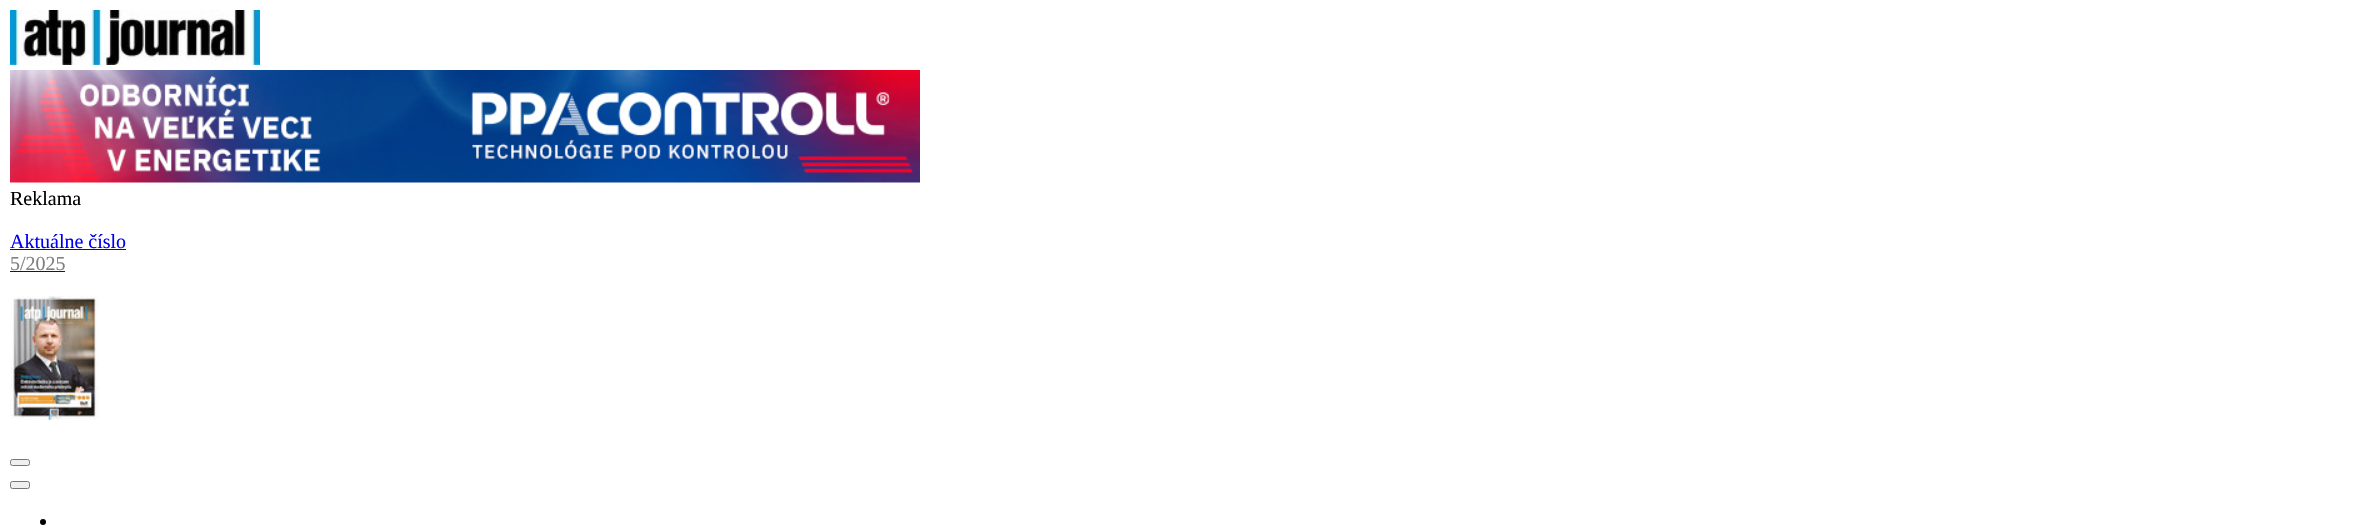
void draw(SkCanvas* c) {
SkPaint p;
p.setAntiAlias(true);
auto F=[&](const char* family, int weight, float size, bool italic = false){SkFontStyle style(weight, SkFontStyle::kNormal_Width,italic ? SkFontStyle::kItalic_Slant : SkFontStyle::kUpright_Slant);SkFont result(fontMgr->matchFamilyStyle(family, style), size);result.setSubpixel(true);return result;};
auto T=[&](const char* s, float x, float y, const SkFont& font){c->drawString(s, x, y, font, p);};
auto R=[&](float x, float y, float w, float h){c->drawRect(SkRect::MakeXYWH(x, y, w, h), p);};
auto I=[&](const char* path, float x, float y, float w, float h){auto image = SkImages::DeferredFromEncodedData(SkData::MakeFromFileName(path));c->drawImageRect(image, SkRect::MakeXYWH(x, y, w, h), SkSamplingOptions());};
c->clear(0xffffffff);
I("1.png",10,10,250,55);
I("2.png",10,70,910,113);
auto f1 = F("Liberation Serif",400,20);
p.setColor(0xff000000);
T("Reklama",10,205,f1);
p.setColor(0xff0000ee);
T("Aktuálne číslo",10,248,f1);
R(10,249,116,1);
p.setColor(0xff808080);
T("5/2025",10,270,f1);
p.setColor(0xff0000ee);
R(10,271,55,1);
I("3.png",10,296,89,124);
p.setColor(0xffefefef);
c->drawRoundRect(SkRect::MakeXYWH(10.5,459.5,19,6),2,2,p);
p.setStroke(true);
p.setStrokeWidth(1);
p.setColor(0xff767676);
c->drawRoundRect(SkRect::MakeXYWH(10.5,459.5,19,6),2,2,p);
p.setStroke(false);
p.setColor(0xffefefef);
c->drawRoundRect(SkRect::MakeXYWH(10.5,481.5,19,7),2,2,p);
p.setStroke(true);
p.setColor(0xff767676);
c->drawRoundRect(SkRect::MakeXYWH(10.5,481.5,19,7),2,2,p);
p.setStroke(false);
p.setColor(0xff000000);
c->drawCircle(43,522,3,p);
}
